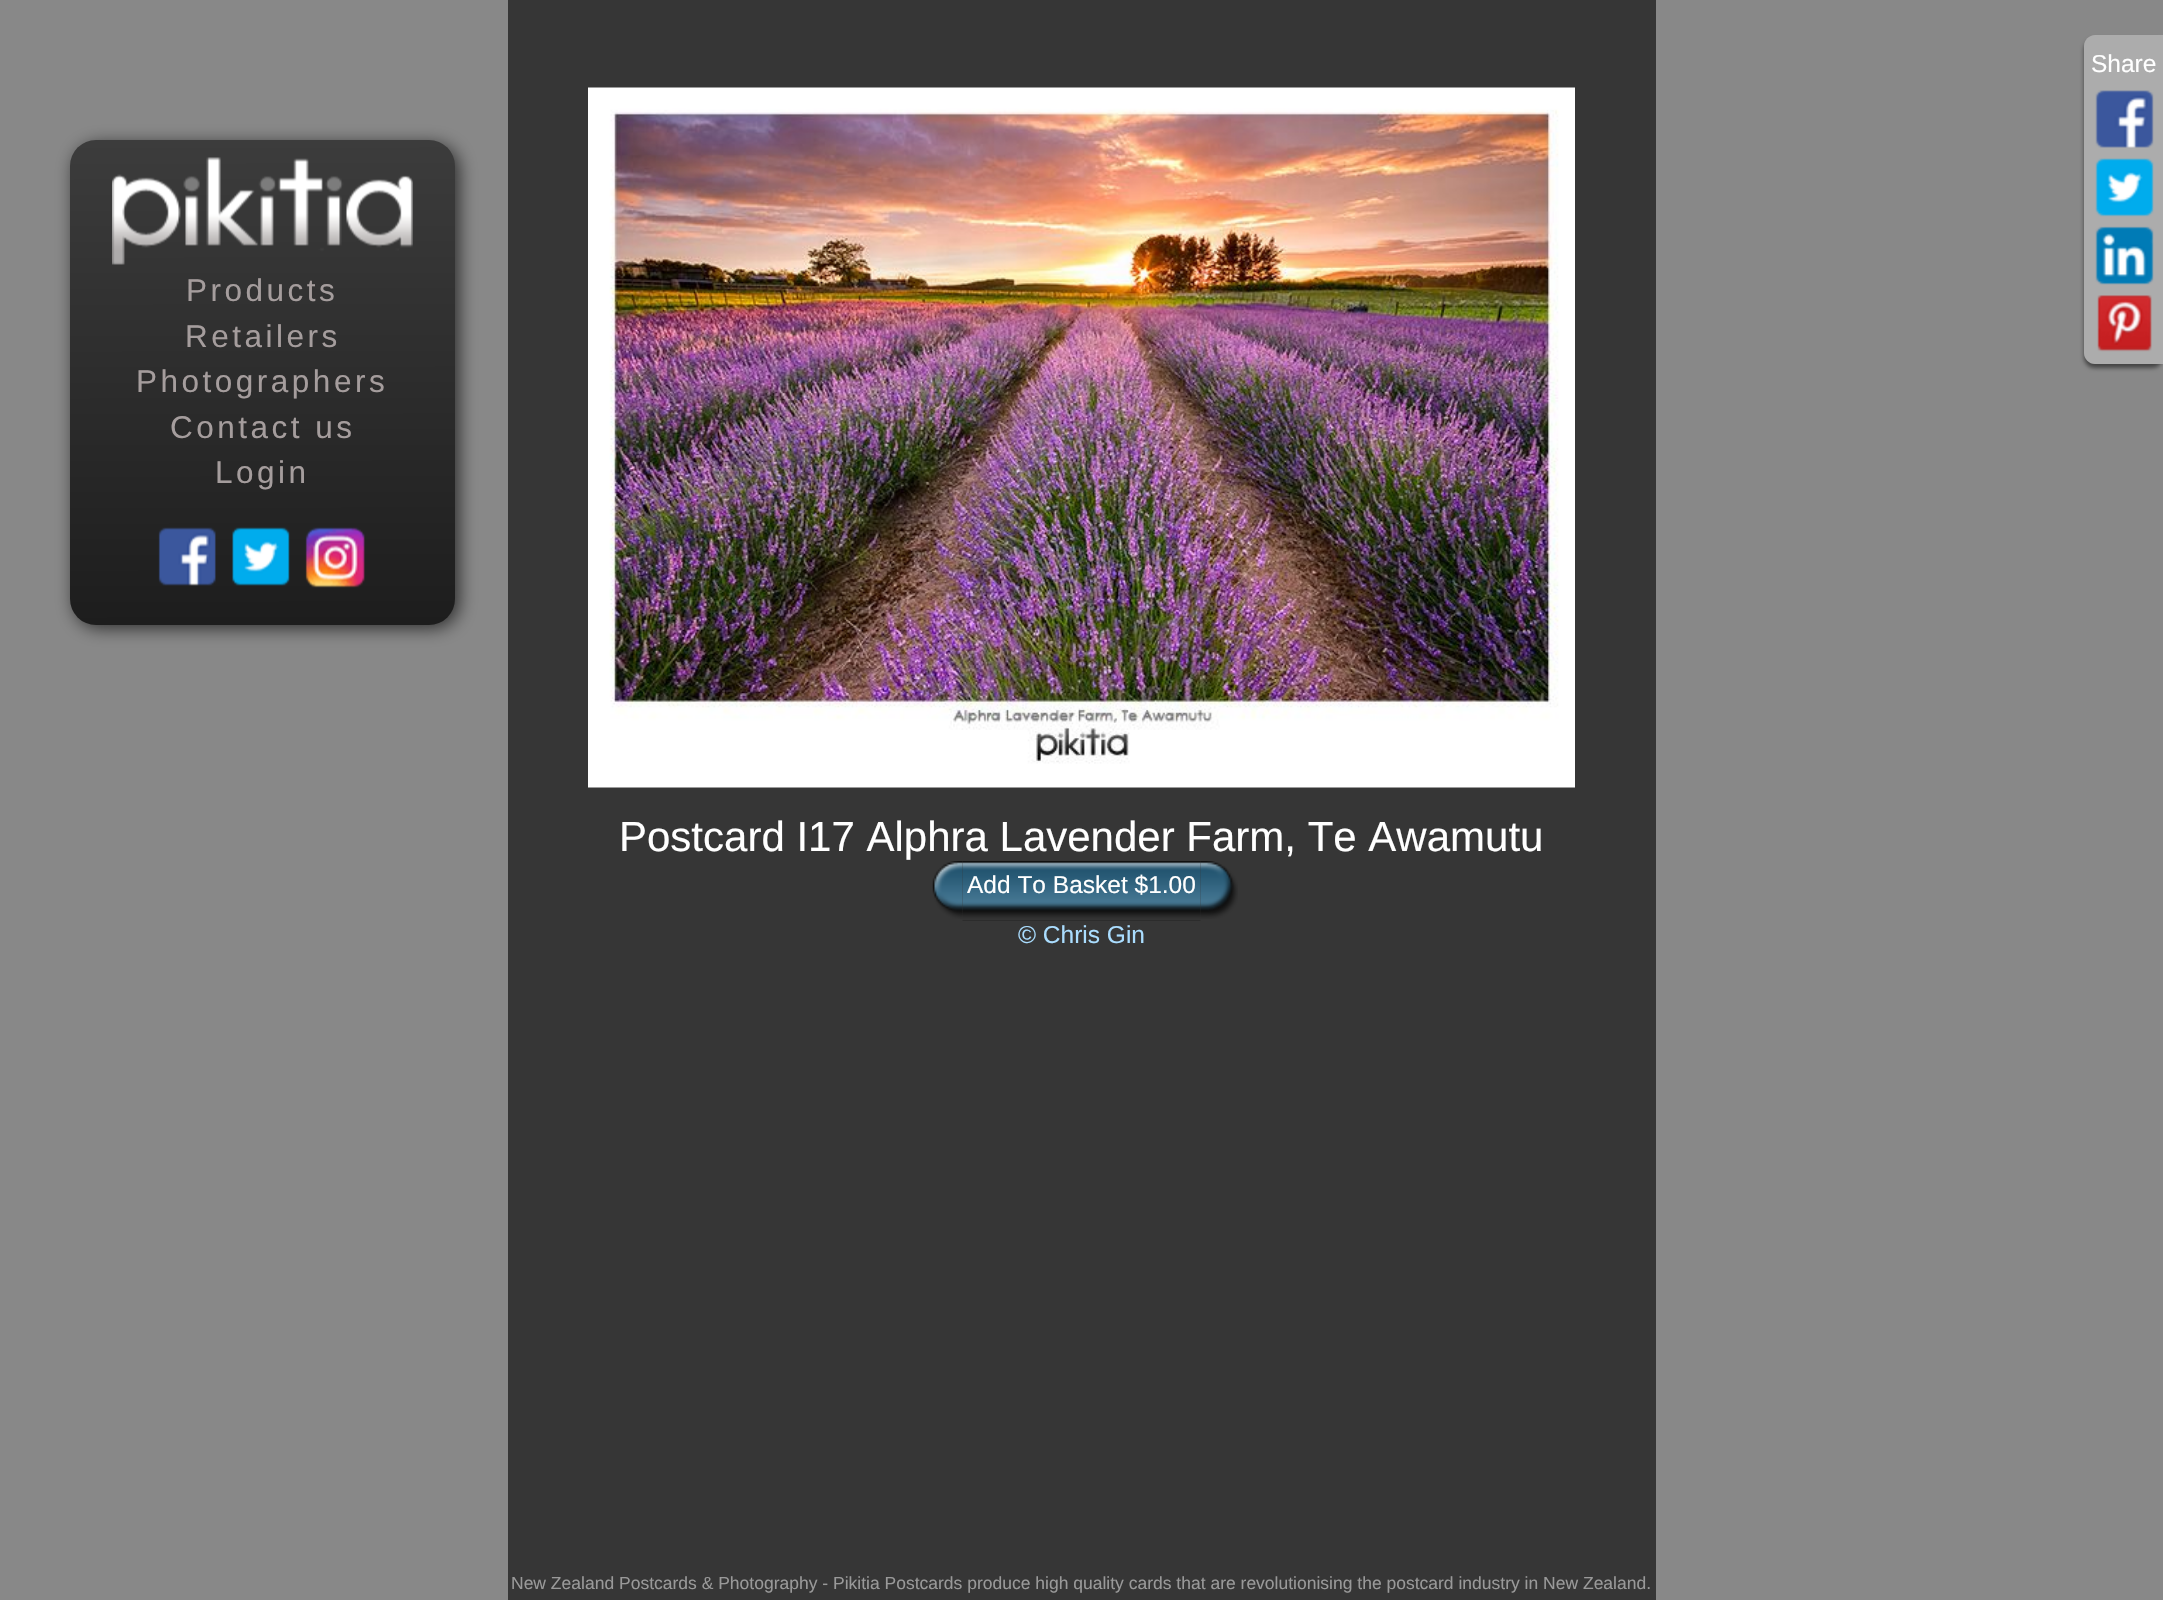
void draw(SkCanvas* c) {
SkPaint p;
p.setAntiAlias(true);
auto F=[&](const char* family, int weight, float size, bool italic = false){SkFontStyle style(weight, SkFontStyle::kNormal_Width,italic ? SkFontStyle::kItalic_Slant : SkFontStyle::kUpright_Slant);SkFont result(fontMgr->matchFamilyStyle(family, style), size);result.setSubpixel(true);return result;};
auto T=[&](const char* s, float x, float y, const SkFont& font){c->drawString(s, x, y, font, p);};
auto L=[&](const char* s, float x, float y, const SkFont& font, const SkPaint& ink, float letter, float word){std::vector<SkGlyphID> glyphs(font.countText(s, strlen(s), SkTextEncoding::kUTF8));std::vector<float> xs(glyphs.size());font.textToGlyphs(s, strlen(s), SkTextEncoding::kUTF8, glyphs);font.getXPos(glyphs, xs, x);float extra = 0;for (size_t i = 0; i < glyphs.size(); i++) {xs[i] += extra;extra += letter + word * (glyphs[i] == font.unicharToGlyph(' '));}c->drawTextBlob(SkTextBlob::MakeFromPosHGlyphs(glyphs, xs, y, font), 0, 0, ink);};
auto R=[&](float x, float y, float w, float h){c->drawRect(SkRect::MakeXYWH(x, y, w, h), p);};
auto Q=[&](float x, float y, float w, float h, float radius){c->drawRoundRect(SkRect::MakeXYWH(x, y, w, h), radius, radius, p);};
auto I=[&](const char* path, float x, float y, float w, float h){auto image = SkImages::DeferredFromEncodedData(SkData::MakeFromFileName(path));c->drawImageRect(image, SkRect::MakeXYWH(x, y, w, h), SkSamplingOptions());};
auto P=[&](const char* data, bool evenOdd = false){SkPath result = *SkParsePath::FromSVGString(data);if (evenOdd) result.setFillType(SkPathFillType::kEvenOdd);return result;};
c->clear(0xff888888);
p.setColor(0xff2c2c2c);
p.setMaskFilter(SkMaskFilter::MakeBlur(kNormal_SkBlurStyle, 9));
c->drawRoundRect(SkRect::MakeXYWH(74,144,385,484),26,26,p);
p.setMaskFilter(nullptr);
{
const SkColor colors[] = {0xff3c3c3c,0xff1d1d1d};
const float stops[] = {0,1};
const SkPoint ends[] = {{262,140}, {263,625}};
p.setShader(SkGradientShader::MakeLinear(ends, colors, stops, 2, SkTileMode::kClamp));
p.setAlpha(255);
}
Q(70,140,385,485,26);
I("1.png",112,157,301,108);
auto f1 = F("Liberation Sans",400,31.5);
p.setShader(nullptr);
p.setColor(0xffa59d9d);
L("Products",186,301,f1,p,3.5,0);
L("Retailers",185,347,f1,p,3.5,0);
L("Photographers",136,392,f1,p,3.5,0);
L("Contact us",170,438,f1,p,3.5,0);
L("Login",215,483,f1,p,3.5,0);
I("2.png",158,527,58,59);
I("3.png",232,527,58,59);
I("4.png",305,527,60,61);
p.setColor(0xff363636);
R(508,0,1148,1600);
c->save();
c->clipPath(P("M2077 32h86v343h-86zm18 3h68v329h-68c-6 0-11-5-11-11v-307c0-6 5-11 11-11z",true),true);
p.setColor(0x80000000);
p.setMaskFilter(SkMaskFilter::MakeBlur(kNormal_SkBlurStyle, 2));
c->drawRoundRect(SkRect::MakeXYWH(2084,39,79,329),11,11,p);
p.setMaskFilter(nullptr);
c->restore();
p.setColor(0x4dffffff);
c->drawPath(P("M2095 35h68v329h-68c-6 0-11-5-11-11v-307c0-6 5-11 11-11z"),p);
auto f2 = F("Liberation Sans",400,24.5);
p.setColor(0xffffffff);
T("Share",2091,72,f2);
I("5.png",2095,90,59,58);
I("6.png",2095,158,59,59);
I("7.png",2095,226,59,59);
I("8.png",2097,295,55,57);
I("9.png",588,87,987,701);
auto f3 = F("Liberation Sans",400,42);
T("Postcard I17 Alphra Lavender Farm, Te Awamutu",619,851,f3);
I("10.png",962,861,239,60);
I("11.png",932,861,31,58);
T("Add To Basket $1.00",967,893,f2);
I("12.png",1200,861,38,58);
p.setColor(0xffaaddff);
T("© Chris Gin",1018,943,f2);
auto f4 = F("Liberation Sans",400,17.5);
p.setColor(0xff999999);
T("New Zealand Postcards & Photography - Pikitia Postcards produce high quality cards that are revolutionising the postcard industry in New Zealand.",511,1589,f4);
}
